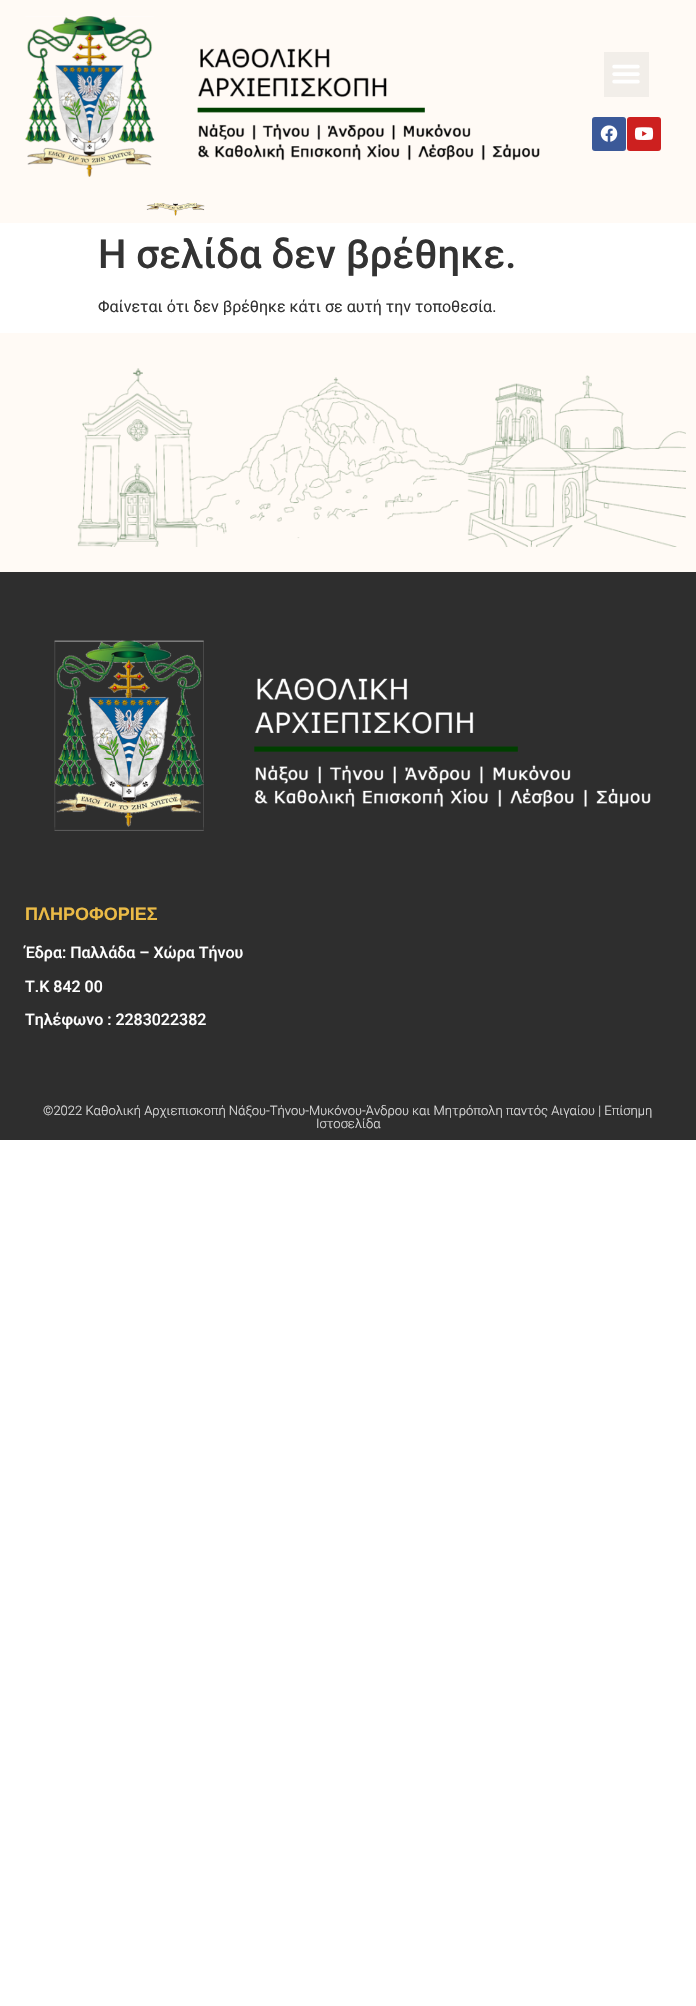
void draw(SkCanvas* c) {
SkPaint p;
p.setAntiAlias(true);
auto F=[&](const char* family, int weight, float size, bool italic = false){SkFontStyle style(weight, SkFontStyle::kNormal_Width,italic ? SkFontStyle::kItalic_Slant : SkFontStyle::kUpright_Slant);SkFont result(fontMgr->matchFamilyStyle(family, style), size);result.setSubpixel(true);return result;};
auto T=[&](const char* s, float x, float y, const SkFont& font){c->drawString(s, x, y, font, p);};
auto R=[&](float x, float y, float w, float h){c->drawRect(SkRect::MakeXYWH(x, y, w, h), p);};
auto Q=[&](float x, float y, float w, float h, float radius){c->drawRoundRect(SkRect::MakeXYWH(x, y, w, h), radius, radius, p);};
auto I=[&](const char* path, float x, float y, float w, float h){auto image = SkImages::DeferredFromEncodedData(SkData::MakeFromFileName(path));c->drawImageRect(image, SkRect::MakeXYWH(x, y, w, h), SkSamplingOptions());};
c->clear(0xffffffff);
p.setColor(0xfffffaf5);
R(0,0,696,223);
I("1.png",145,203,61,13);
I("2.png",25,16,515,161);
p.setColor(0xfff2eee9);
R(604,52,45,45);
I("3.png",612,64,28,20);
p.setColor(0xff3b5998);
Q(592,117,34,34,3);
I("4.png",600,125,18,17);
p.setColor(0xffcd201f);
Q(627,117,34,34,3);
I("5.png",634,127,20,13);
auto f1 = F("Roboto",500,40);
p.setColor(0xff333333);
T("Η σελίδα δεν βρέθηκε.",98,268,f1);
auto f2 = F("Roboto",400,16);
T("Φαίνεται ότι δεν βρέθηκε κάτι σε αυτή την τοποθεσία.",98,312,f2);
p.setColor(0xfffffaf5);
R(0,333,696,239);
I("6.png",77,368,609,179);
p.setColor(0xff2e2e2e);
R(0,572,696,568);
I("7.png",54,640,597,191);
auto f3 = F("Liberation Sans",700,18);
p.setColor(0xffebbb46);
T("ΠΛΗΡΟΦΟΡΙΕΣ",25,920,f3);
auto f4 = F("Roboto",500,16);
p.setColor(0xffffffff);
T("Έδρα: Παλλάδα – Χώρα Τήνου",25,958,f4);
T("Τ.Κ 842 00",25,992,f4);
T("Τηλέφωνο : 2283022382",25,1025,f4);
auto f5 = F("Roboto",300,13);
p.setColor(0xffe1e1e1);
T("©2022 Καθολική Αρχιεπισκοπή Νάξου-Τήνου-Μυκόνου-Άνδρου και Μητρόπολη παντός Αιγαίου | Επίσημη",43,1115,f5);
T("Ιστοσελίδα",316,1128,f5);
}
